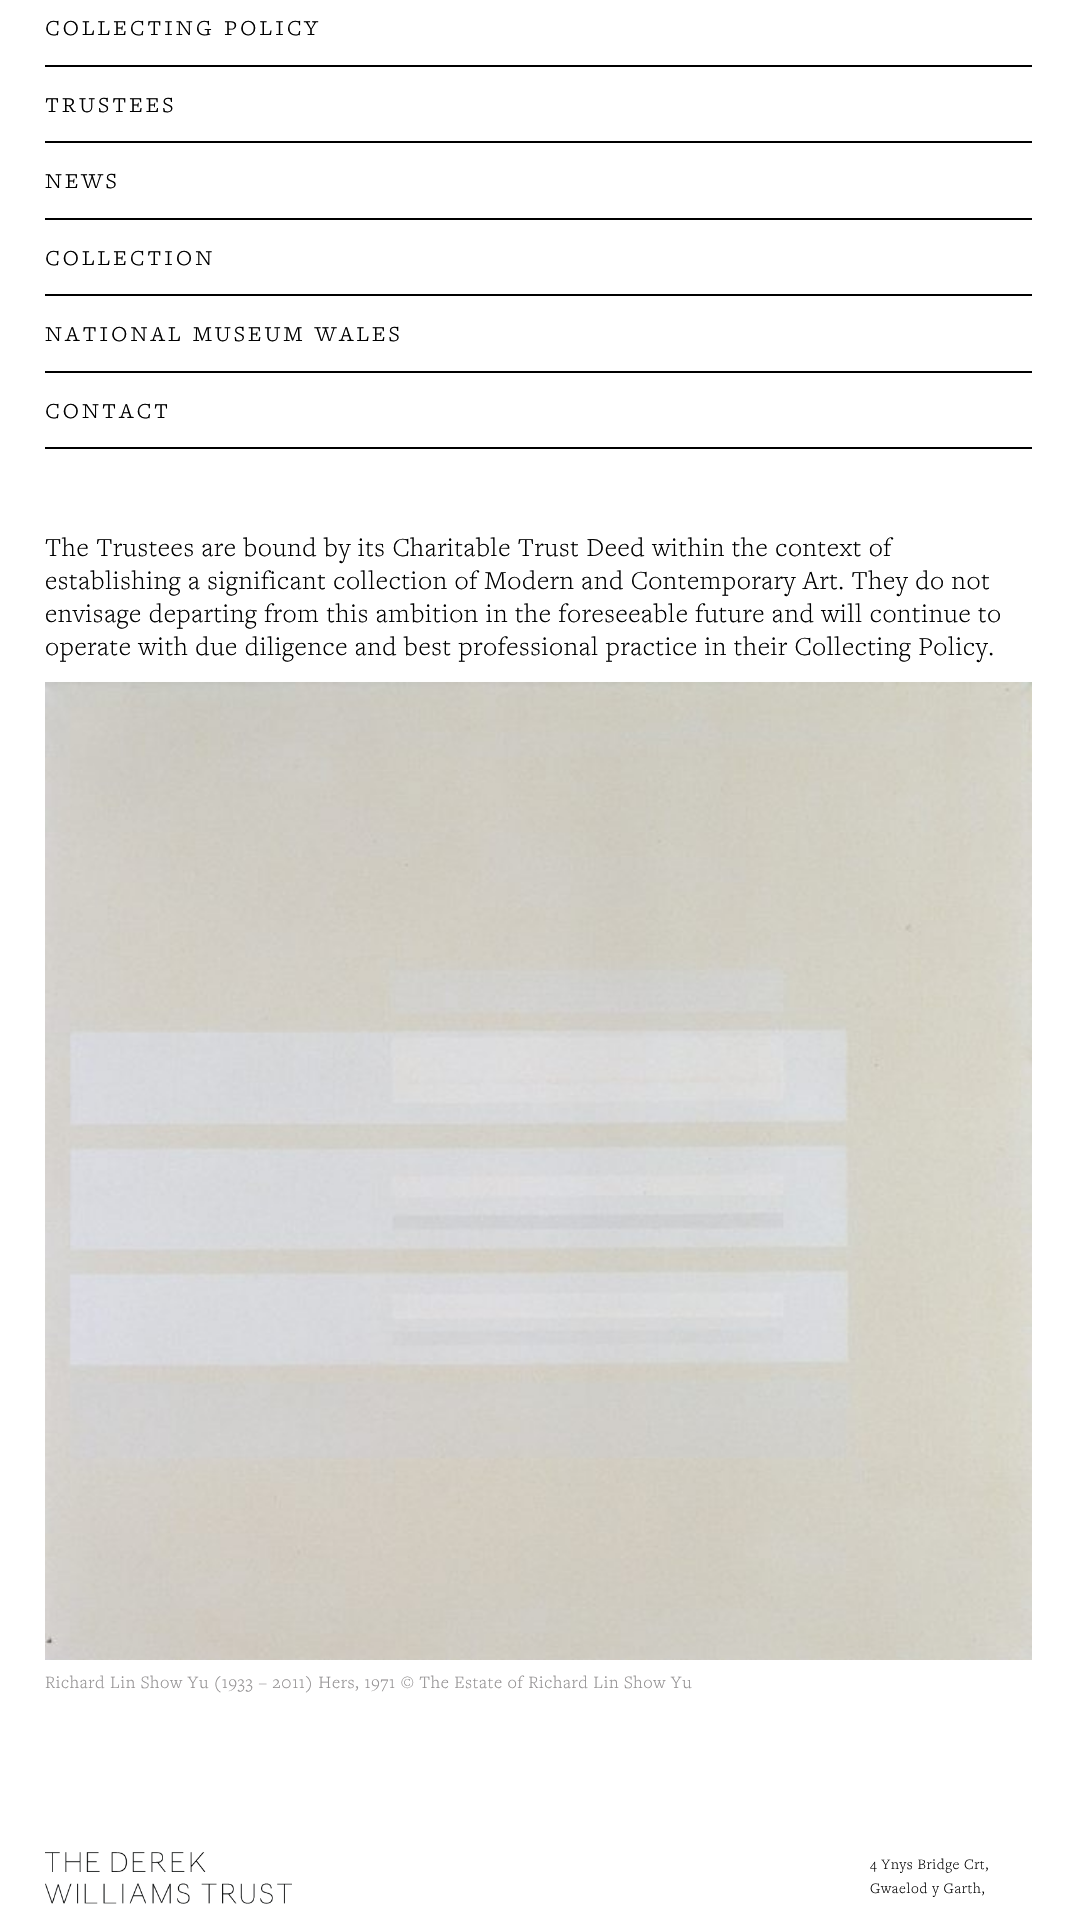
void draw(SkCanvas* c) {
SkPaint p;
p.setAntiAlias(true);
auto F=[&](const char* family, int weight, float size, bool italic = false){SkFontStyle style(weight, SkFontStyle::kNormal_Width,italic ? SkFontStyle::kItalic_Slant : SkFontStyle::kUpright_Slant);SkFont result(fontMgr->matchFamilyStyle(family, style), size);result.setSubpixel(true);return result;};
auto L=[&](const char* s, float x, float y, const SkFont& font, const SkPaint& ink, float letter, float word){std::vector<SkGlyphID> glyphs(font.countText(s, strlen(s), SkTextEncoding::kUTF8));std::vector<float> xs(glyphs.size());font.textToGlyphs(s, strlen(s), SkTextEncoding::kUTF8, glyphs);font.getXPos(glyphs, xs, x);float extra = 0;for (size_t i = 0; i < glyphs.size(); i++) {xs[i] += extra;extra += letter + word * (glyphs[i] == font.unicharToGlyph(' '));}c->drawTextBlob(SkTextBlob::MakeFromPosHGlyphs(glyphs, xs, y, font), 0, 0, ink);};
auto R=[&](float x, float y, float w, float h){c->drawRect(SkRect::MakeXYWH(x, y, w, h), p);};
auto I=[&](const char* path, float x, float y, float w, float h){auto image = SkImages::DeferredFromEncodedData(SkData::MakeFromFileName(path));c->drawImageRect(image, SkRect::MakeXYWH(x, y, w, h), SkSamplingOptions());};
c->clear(0xffffffff);
p.setColor(0xff000000);
R(45,65,987,2);
auto f1 = F("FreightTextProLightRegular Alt",400,30);
L("collecting policy",45,35,f1,p,3,0);
R(45,141,987,2);
L("trustees",45,112,f1,p,3,0);
R(45,218,987,2);
L("news",45,188,f1,p,3,0);
R(45,294,987,2);
L("collection",45,265,f1,p,3,0);
R(45,371,987,2);
L("national museum wales",45,341,f1,p,3,0);
R(45,447,987,2);
L("contact",45,418,f1,p,3,0);
auto f2 = F("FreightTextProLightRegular",400,27);
L("The Trustees are bound by its Charitable Trust Deed within the context of",45,556,f2,p,.68,0);
L("establishing a significant collection of Modern and Contemporary Art. They do not",45,589,f2,p,.68,0);
L("envisage departing from this ambition in the foreseeable future and will continue to",45,622,f2,p,.68,0);
L("operate with due diligence and best professional practice in their Collecting Policy.",45,655,f2,p,.68,0);
I("1.png",45,682,987,978);
auto f3 = F("FreightTextProLightRegular",400,18);
p.setColor(0xff929091);
L("Richard Lin Show Yu (1933 – 2011) Hers, 1971 © The Estate of Richard Lin Show Yu",45,1688,f3,p,.68,0);
I("2.png",45,1852,247,52);
auto f4 = F("FreightTextProLightRegular",400,15);
p.setColor(0xff000000);
L("4 Ynys Bridge Crt,",870,1869,f4,p,.68,0);
L("Gwaelod y Garth,",870,1893,f4,p,.68,0);
}
